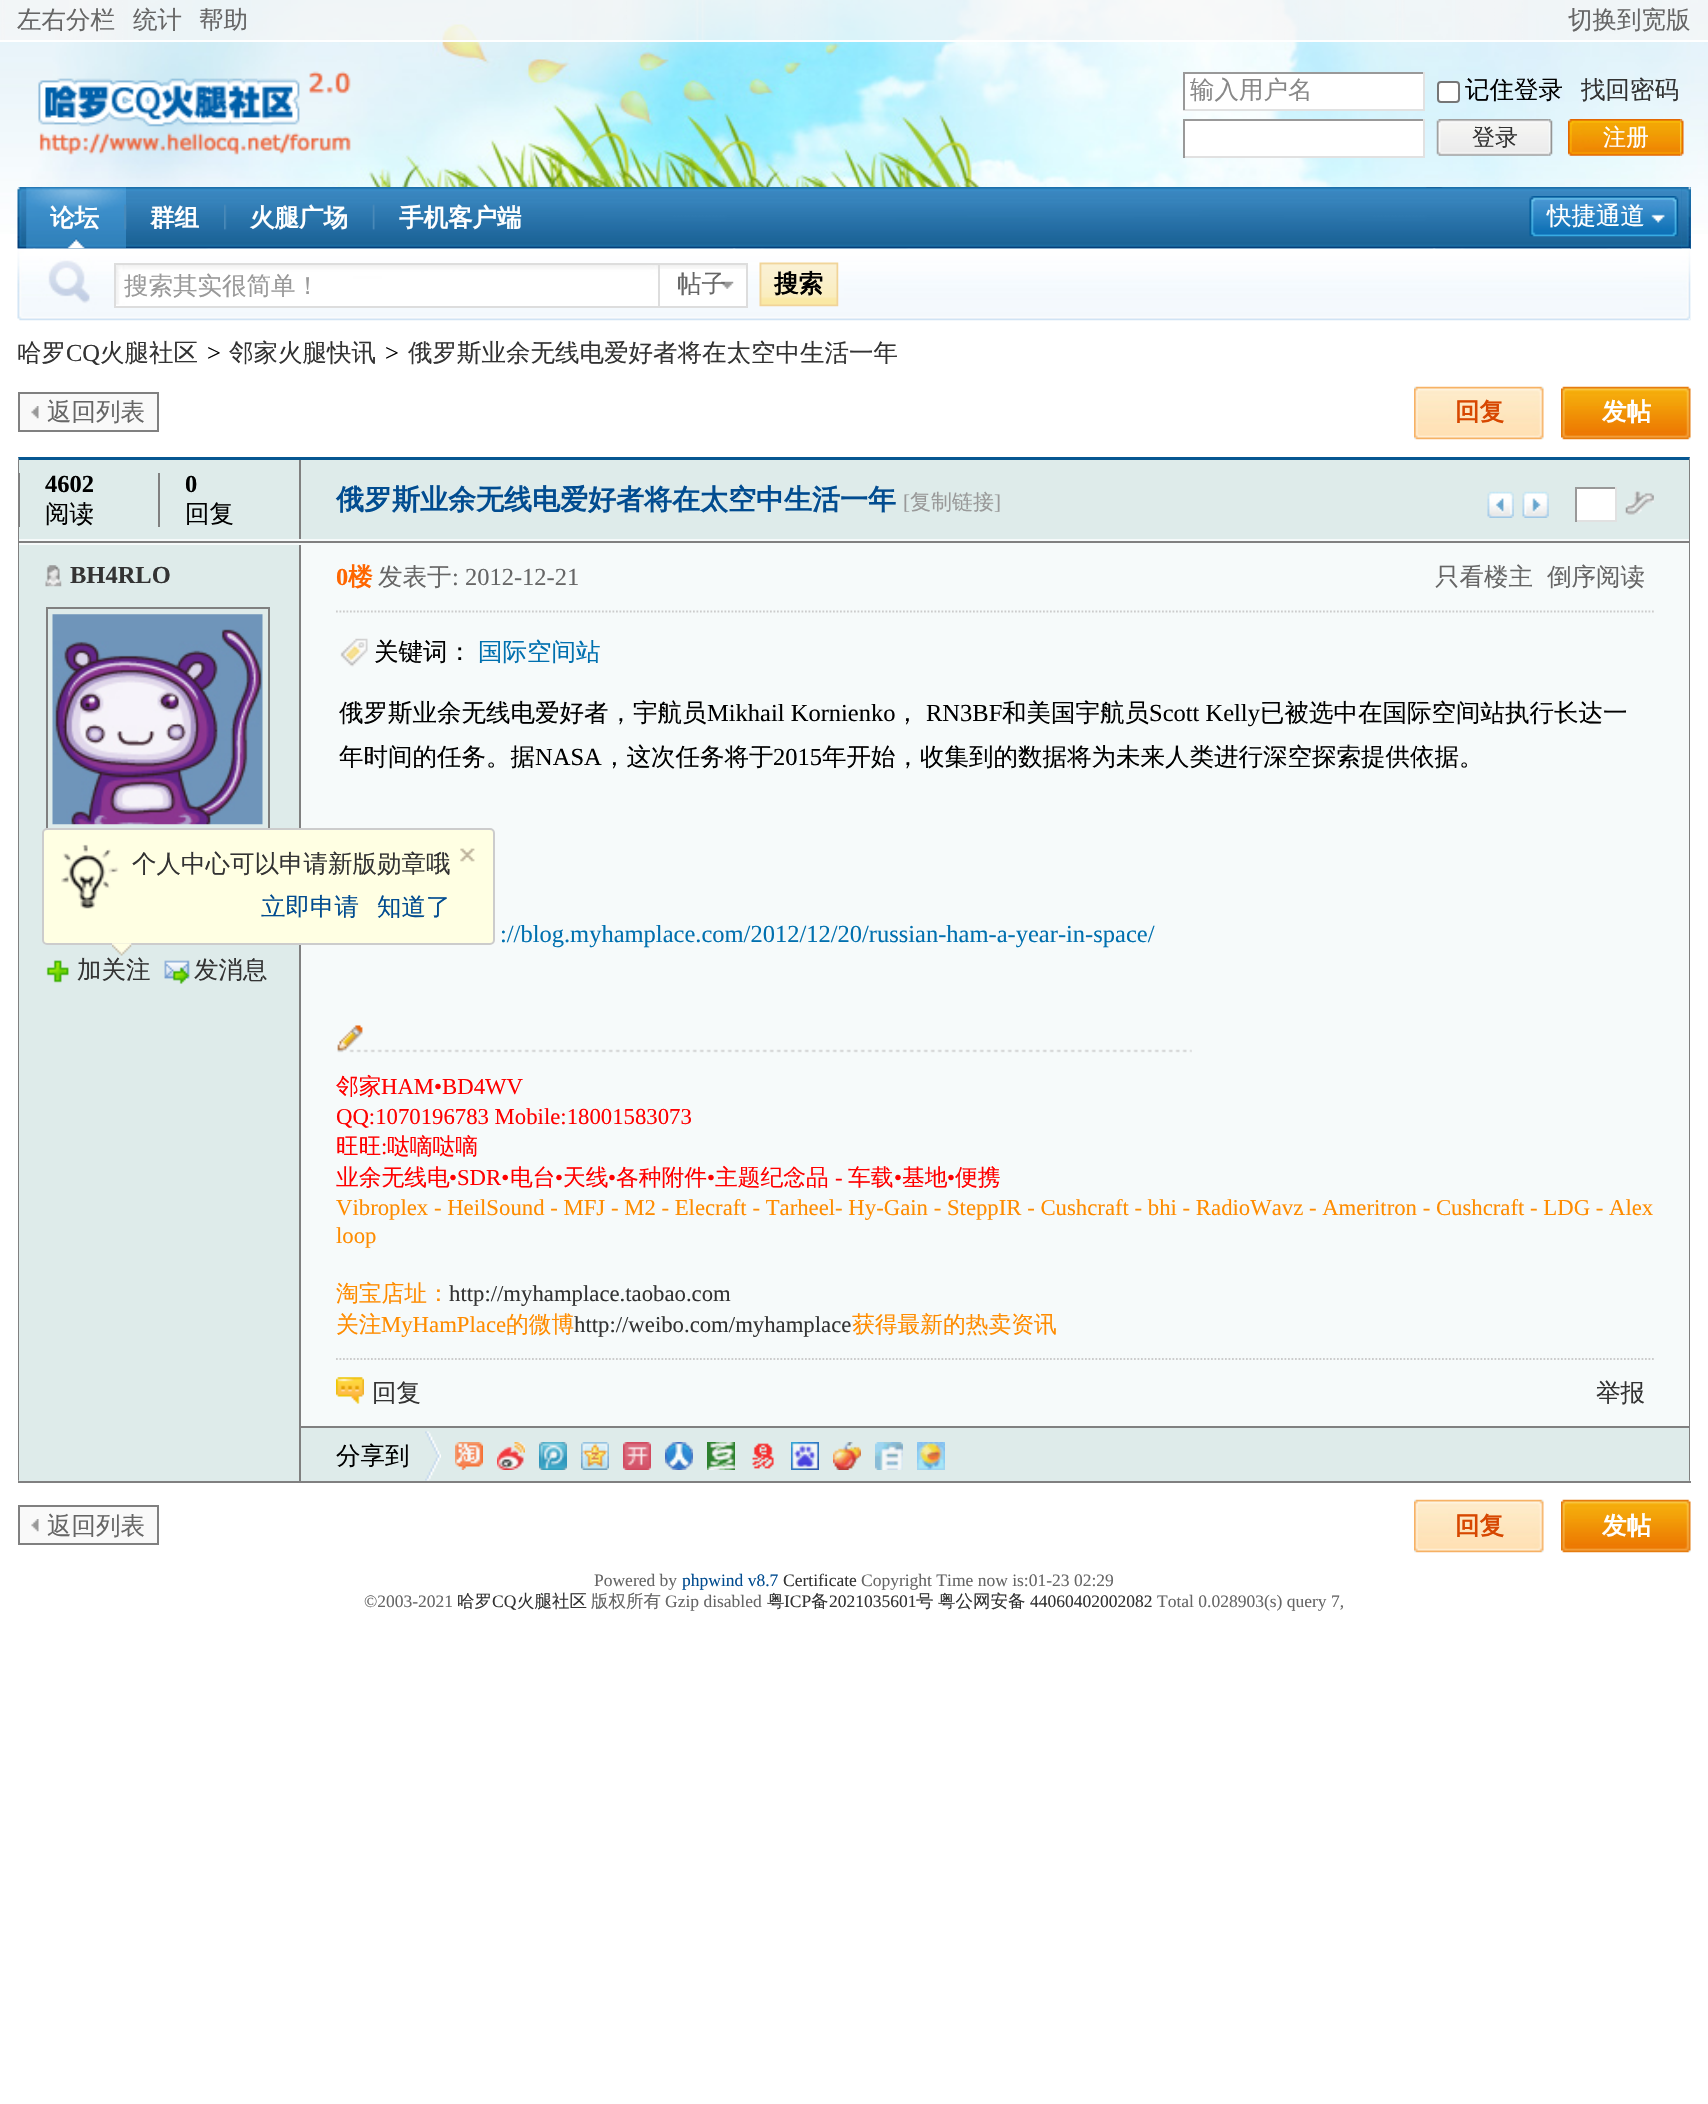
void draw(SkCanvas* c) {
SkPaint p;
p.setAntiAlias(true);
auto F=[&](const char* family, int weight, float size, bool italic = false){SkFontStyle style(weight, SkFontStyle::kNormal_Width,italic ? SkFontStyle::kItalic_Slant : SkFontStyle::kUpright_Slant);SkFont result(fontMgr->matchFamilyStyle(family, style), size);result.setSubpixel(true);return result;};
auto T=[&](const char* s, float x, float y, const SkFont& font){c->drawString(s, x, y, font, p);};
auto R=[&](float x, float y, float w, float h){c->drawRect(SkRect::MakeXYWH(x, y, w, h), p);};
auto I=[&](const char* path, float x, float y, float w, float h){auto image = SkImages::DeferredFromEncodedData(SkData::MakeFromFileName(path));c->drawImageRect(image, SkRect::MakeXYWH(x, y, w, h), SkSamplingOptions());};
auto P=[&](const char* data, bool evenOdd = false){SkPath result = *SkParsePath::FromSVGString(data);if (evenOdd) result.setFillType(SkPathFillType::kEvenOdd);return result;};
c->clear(0xffffffff);
I("1.png",0,0,1708,234);
I("2.png",0,0,1708,40);
p.setColor(0xffffffff);
R(0,40,1708,2);
auto f1 = F("WenQuanYi Zen Hei",500,24.5);
p.setColor(0xff666666);
T("左右分栏",17,28,f1);
T("统计",133,28,f1);
T("帮助",199,28,f1);
T("切换到宽版",1568,28,f1);
I("3.png",38,71,313,84);
p.setColor(0xffffffff);
R(1185,74,238,35);
p.setColor(0xff999999);
R(1183,72,242,2);
p.setColor(0xffe1e1e1);
R(1423,72,2,38);
R(1183,109,242,2);
p.setColor(0xff999999);
R(1183,72,2,38);
p.setColor(0xff888888);
T("输入用户名",1190,98,f1);
p.setColor(0xffffffff);
R(1185,121,238,35);
p.setColor(0xff999999);
R(1183,119,242,2);
p.setColor(0xffe1e1e1);
R(1423,119,2,39);
R(1183,156,242,2);
p.setColor(0xff999999);
R(1183,119,2,39);
p.setColor(0xffffffff);
c->drawRoundRect(SkRect::MakeXYWH(1438,82,21,20),3,3,p);
p.setStroke(true);
p.setStrokeWidth(2);
p.setColor(0xff767676);
c->drawRoundRect(SkRect::MakeXYWH(1438,82,21,20),3,3,p);
p.setStroke(false);
p.setColor(0xff000000);
T("记住登录",1465,98,f1);
I("4.png",1548,119,5,37);
I("5.png",1436,119,113,37);
auto f2 = F("WenQuanYi Zen Hei",500,23);
p.setColor(0xff333333);
T("登录",1472,145,f2);
T("找回密码",1581,98,f1);
I("6.png",1679,119,5,37);
I("7.png",1568,119,112,37);
p.setColor(0xffffffff);
T("注册",1603,145,f2);
p.setColor(0xff176eac);
R(18,187,1673,62);
I("8.png",17,187,10,62);
I("15.png",1681,187,10,62);
I("9.png",26,187,1656,62);
I("10.png",26,187,100,62);
auto f3 = F("WenQuanYi Zen Hei",700,24.5);
p.setColor(0xffffffff);
T("论坛",50,226,f3);
I("11.png",124,204,3,26);
T("群组",150,226,f3);
I("12.png",224,204,3,26);
T("火腿广场",250,226,f3);
I("13.png",372,204,3,26);
T("手机客户端",399,226,f3);
I("14.png",1529,196,150,41);
T("快捷通道",1547,224,f1);
I("16.png",17,248,1674,73);
R(116,304,542,2);
I("17.png",116,265,542,40);
p.setStroke(true);
p.setColor(0xffdddddd);
c->drawRect(SkRect::MakeXYWH(115,264,544,43),p);
p.setStroke(false);
p.setColor(0xff999999);
T("搜索其实很简单！",124,294,f1);
p.setColor(0xffffffff);
R(660,269,86,37);
I("18.png",660,265,86,4);
p.setColor(0xffdddddd);
R(660,263,87,2);
R(746,263,2,45);
R(660,306,87,2);
I("19.png",721,281,13,8);
p.setColor(0xff666666);
T("帖子",677,292,f1);
I("20.png",759,262,80,45);
p.setColor(0xff000000);
T("搜索",774,292,f3);
I("21.png",1681,248,10,72);
p.setColor(0xff333333);
T("哈罗",17,361,f1);
auto f4 = F("Liberation Serif",400,24.5);
T("CQ",66,361,f4);
T("火腿社区",100,361,f1);
p.setColor(0xff000000);
T(">",207,361,f4);
p.setColor(0xff333333);
T("邻家火腿快讯",229,361,f1);
p.setColor(0xff000000);
T(">",385,361,f4);
p.setColor(0xff333333);
T("俄罗斯业余无线电爱好者将在太空中生活一年",408,361,f1);
p.setColor(0xfff9f9f9);
R(20,394,137,36);
I("22.png",31,406,8,13);
p.setStroke(true);
p.setColor(0xff808080);
c->drawRect(SkRect::MakeXYWH(19,393,139,38),p);
p.setStroke(false);
p.setColor(0xff666666);
T("返回列表",47,420,f1);
I("23.png",1414,386,130,54);
p.setColor(0xffd74700);
T("回复",1455,420,f3);
I("24.png",1561,386,130,54);
p.setColor(0xffffffff);
T("发帖",1602,420,f3);
p.setColor(0xfff6fafa);
R(301,545,1388,881);
p.setColor(0xff065792);
c->drawPath(P("M18 457h1672l-1 3h-1670z"),p);
p.setColor(0xff808080);
c->drawPath(P("M1690 457v1025l-1-2v-1020z"),p);
R(18,1481,1673,2);
c->drawPath(P("M18 1482v-1025l1 3v1020z"),p);
p.setColor(0xffdeebea);
R(19,460,1670,79);
p.setColor(0xff808080);
R(299,460,2,81);
R(19,473,1,54);
auto f5 = F("Liberation Serif",700,24.5);
p.setColor(0xff000000);
T("4602",45,492,f5);
T("阅读",45,522,f1);
p.setColor(0xff808080);
R(158,473,2,54);
p.setColor(0xff000000);
T("0",185,492,f5);
T("回复",185,522,f1);
auto f6 = F("WenQuanYi Zen Hei",700,28);
p.setColor(0xff014c90);
T("俄罗斯业余无线电爱好者将在太空中生活一年",336,509,f6);
auto f7 = F("Liberation Serif",400,21);
p.setColor(0xff999999);
T("[",903,509,f7);
auto f8 = F("WenQuanYi Zen Hei",500,21);
T("复制链接",910,509,f8);
T("]",994,509,f7);
I("25.png",1487,491,27,27);
I("26.png",1522,491,27,27);
p.setColor(0xffffffff);
R(1577,489,38,31);
p.setColor(0xff999999);
R(1575,487,42,2);
p.setColor(0xffe1e1e1);
R(1615,487,2,35);
R(1575,520,42,2);
p.setColor(0xff999999);
R(1575,487,2,35);
I("27.png",1625,491,29,24);
p.setColor(0xff808080);
R(19,541,1670,2);
p.setColor(0xfff6fafa);
R(19,539,1670,2);
p.setColor(0xff808080);
R(299,544,2,938);
p.setColor(0xfff6fafa);
R(19,543,1670,2);
p.setColor(0xffdeebea);
R(19,545,280,936);
I("28.png",45,565,17,22);
p.setColor(0xff333333);
T("BH4RLO",70,583,f5);
p.setStroke(true);
p.setColor(0xff808080);
c->drawRect(SkRect::MakeXYWH(47,608,222,222),p);
I("29.png",52,614,211,211);
p.setStroke(false);
p.setColor(0xffffffe3);
c->drawRoundRect(SkRect::MakeXYWH(43,829,451,115),4,4,p);
p.setStroke(true);
p.setColor(0xffcccccc);
c->drawRoundRect(SkRect::MakeXYWH(43,829,451,115),4,4,p);
I("30.png",61,844,58,65);
p.setStroke(false);
p.setColor(0xff333333);
T("个人中心可以申请新版勋章哦",132,872,f1);
p.setColor(0xff014c90);
T("立即申请",261,915,f1);
T("知道了",377,915,f1);
I("31.png",460,848,15,14);
I("32.png",112,943,20,13);
I("33.png",46,960,23,23);
p.setColor(0xff333333);
T("加关注",77,978,f1);
I("34.png",164,960,26,24);
T("发消息",194,978,f1);
p.setStroke(true);
p.setStrokeWidth(1.8);
p.setColor(0xffcccccc);
p.setPathEffect(SkDashPathEffect::Make({{1.75f,1.75f}}, 0));
c->drawPath(P("M336 611.5h1318"),p);
p.setPathEffect(nullptr);
p.setStroke(false);
p.setColor(0xffff6600);
T("0",336,585,f5);
T("楼",348,585,f3);
p.setColor(0xff666666);
T("发表于",378,585,f1);
T(": 2012-12-21",452,585,f4);
T("只看楼主",1435,585,f1);
T("倒序阅读",1547,585,f1);
I("35.png",340,638,28,29);
p.setColor(0xff000000);
T("关键词：",374,660,f1);
p.setColor(0xff0070af);
T("国际空间站",478,660,f1);
p.setColor(0xff000000);
T("俄罗斯业余无线电爱好者，宇航员",339,721,f1);
T("Mikhail Kornienko",707,721,f4);
T("，",895,721,f1);
T("RN3BF",926,721,f4);
T("和美国宇航员",1002,721,f1);
T("Scott Kelly",1149,721,f4);
T("已被选中在国际空间站执行长达一",1260,721,f1);
T("年时间的任务。据",339,765,f1);
T("NASA",535,765,f4);
T("，这次任务将于",602,765,f1);
T("2015",773,765,f4);
T("年开始，收集到的数据将为未来人类进行深空探索提供依据。",822,765,f1);
p.setColor(0xff0070af);
T("://blog.myhamplace.com/2012/12/20/russian-ham-a-year-in-space/",500,942,f4);
I("36.png",337,1025,855,28);
auto f9 = F("WenQuanYi Zen Hei",500,22.75);
p.setColor(0xffff0000);
T("邻家",336,1094,f9);
auto f10 = F("Liberation Serif",400,22.75);
T("HAM•BD4WV",381,1094,f10);
T("QQ:1070196783 Mobile:18001583073",336,1124,f10);
T("旺旺",336,1154,f9);
T(":",381,1154,f10);
T("哒嘀哒嘀",387,1154,f9);
T("业余无线电",336,1185,f9);
T("•SDR•",449,1185,f10);
T("电台",510,1185,f9);
T("•",555,1185,f10);
T("天线",563,1185,f9);
T("•",608,1185,f10);
T("各种附件",616,1185,f9);
T("•",707,1185,f10);
T("主题纪念品",715,1185,f9);
T("-",835,1185,f10);
T("车载",848,1185,f9);
T("•",894,1185,f10);
T("基地",902,1185,f9);
T("•",947,1185,f10);
T("便携",955,1185,f9);
p.setColor(0xffff8c00);
T("Vibroplex - HeilSound - MFJ - M2 - Elecraft - Tarheel- Hy-Gain - SteppIR - Cushcraft - bhi - RadioWavz - Ameritron - Cushcraft - LDG - Alex",336,1215,f10);
T("loop",336,1243,f10);
T("淘宝店址：",336,1301,f9);
p.setColor(0xff333333);
T("http://myhamplace.taobao.com",449,1301,f10);
p.setColor(0xffff8c00);
T("关注",336,1332,f9);
T("MyHamPlace",381,1332,f10);
T("的微博",506,1332,f9);
p.setColor(0xff333333);
T("http://weibo.com/myhamplace",574,1332,f10);
p.setColor(0xffff8c00);
T("获得最新的热卖资讯",852,1332,f9);
p.setStroke(true);
p.setColor(0xffcccccc);
p.setPathEffect(SkDashPathEffect::Make({{1.75f,1.75f}}, 0));
c->drawPath(P("M336 1359h1318"),p);
p.setPathEffect(nullptr);
I("37.png",336,1377,28,27);
p.setStroke(false);
p.setColor(0xff333333);
T("回复",372,1401,f1);
T("举报",1596,1401,f1);
p.setColor(0xffdeebea);
R(301,1428,1388,53);
p.setColor(0xff808080);
R(301,1426,1388,2);
I("38.png",425,1431,16,50);
p.setColor(0xff000000);
T("分享到",336,1464,f1);
I("39.png",455,1442,28,28);
I("40.png",497,1442,28,28);
I("41.png",539,1442,28,28);
I("42.png",581,1442,28,28);
I("43.png",623,1442,28,28);
I("44.png",665,1442,28,28);
I("45.png",707,1442,28,28);
I("46.png",752,1443,22,26);
I("47.png",791,1442,28,28);
I("48.png",833,1442,28,28);
I("49.png",875,1442,28,28);
I("50.png",917,1442,28,28);
p.setColor(0xfff9f9f9);
R(20,1507,137,36);
I("22.png",31,1519,8,13);
p.setStroke(true);
p.setStrokeWidth(2);
p.setColor(0xff808080);
c->drawRect(SkRect::MakeXYWH(19,1506,139,38),p);
p.setStroke(false);
p.setColor(0xff666666);
T("返回列表",47,1534,f1);
I("23.png",1414,1499,130,54);
p.setColor(0xffd74700);
T("回复",1455,1534,f3);
I("24.png",1561,1499,130,54);
p.setColor(0xffffffff);
T("发帖",1602,1534,f3);
auto f11 = F("Liberation Serif",400,17.5);
p.setColor(0xff666666);
T("Powered by",594,1586,f11);
p.setColor(0xff014c90);
T("phpwind v8.7",682,1586,f11);
p.setColor(0xff333333);
T("Certificate",783,1586,f11);
p.setColor(0xff666666);
T("Copyright Time now is:01-23 02:29",861,1586,f11);
T("©2003-2021",364,1607,f11);
auto f12 = F("WenQuanYi Zen Hei",500,17.5);
p.setColor(0xff333333);
T("哈罗",457,1607,f12);
T("CQ",492,1607,f11);
T("火腿社区",517,1607,f12);
p.setColor(0xff666666);
T("版权所有",591,1607,f12);
T("Gzip disabled",665,1607,f11);
p.setColor(0xff333333);
T("粤",767,1607,f12);
T("ICP",784,1607,f11);
T("备",811,1607,f12);
T("2021035601",829,1607,f11);
T("号",916,1607,f12);
T("粤公网安备",938,1607,f12);
T("44060402002082",1030,1607,f11);
p.setColor(0xff666666);
T("Total 0.028903(s) query 7,",1157,1607,f11);
}
